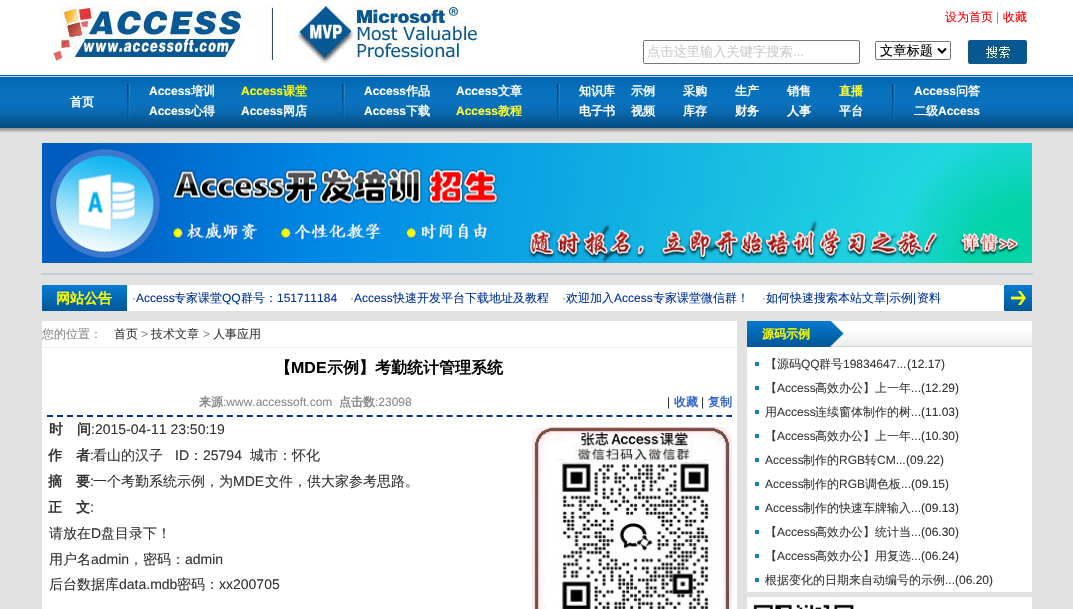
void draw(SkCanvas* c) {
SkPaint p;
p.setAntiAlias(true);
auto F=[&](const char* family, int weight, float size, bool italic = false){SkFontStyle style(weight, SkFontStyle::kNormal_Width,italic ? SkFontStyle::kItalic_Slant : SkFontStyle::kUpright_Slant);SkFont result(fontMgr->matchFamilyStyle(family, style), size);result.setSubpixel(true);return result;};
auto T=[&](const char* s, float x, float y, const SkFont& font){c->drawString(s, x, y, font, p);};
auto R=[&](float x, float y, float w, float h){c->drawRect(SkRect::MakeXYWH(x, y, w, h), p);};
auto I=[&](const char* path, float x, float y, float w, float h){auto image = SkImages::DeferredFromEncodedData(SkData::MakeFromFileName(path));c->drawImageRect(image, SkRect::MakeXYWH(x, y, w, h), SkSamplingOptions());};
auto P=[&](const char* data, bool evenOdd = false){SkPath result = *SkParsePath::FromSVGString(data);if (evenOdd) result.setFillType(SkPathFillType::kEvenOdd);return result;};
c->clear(0xffe1e1e1);
p.setColor(0xffffffff);
R(0,0,1073,75);
I("1.png",52,5,428,59);
auto f1 = F("WenQuanYi Zen Hei",500,12);
p.setColor(0xffff0000);
T("设为首页",945,21,f1);
auto f2 = F("Liberation Sans",400,12);
p.setColor(0xff888888);
T("|",996,21,f2);
p.setColor(0xffff0000);
T("收藏",1003,21,f1);
p.setStroke(true);
p.setStrokeWidth(1);
p.setColor(0xff767676);
c->drawRoundRect(SkRect::MakeXYWH(643.5,40.5,216,23),1.5,1.5,p);
auto f3 = F("WenQuanYi Zen Hei",500,13.25);
p.setStroke(false);
p.setColor(0xffcccccc);
T("点击这里输入关键字搜索",647,56,f3);
auto f4 = F("Liberation Sans",400,13.25);
T("...",793,56,f4);
p.setStroke(true);
p.setColor(0xff767676);
c->drawRoundRect(SkRect::MakeXYWH(875.5,41.5,75,18),1.5,1.5,p);
p.setStrokeWidth(2);
p.setColor(0xff000000);
c->drawPath(P("M938 48.5l4 4l4-4"),p);
p.setStroke(false);
T("文章标题",880,55,f3);
I("2.png",967,40,60,24);
I("3.png",0,75,1073,58);
auto f5 = F("WenQuanYi Zen Hei",700,12);
p.setColor(0xffffffff);
T("首页",70,106,f5);
I("4.png",127,84,3,36);
auto f6 = F("Liberation Sans",700,12);
T("Access",149,95,f6);
T("培训",191,95,f5);
p.setColor(0xffffff00);
T("Access",241,95,f6);
T("课堂",283,95,f5);
p.setColor(0xffffffff);
T("Access",149,115,f6);
T("心得",191,115,f5);
T("Access",241,115,f6);
T("网店",283,115,f5);
I("4.png",342,84,3,36);
T("Access",364,95,f6);
T("作品",406,95,f5);
T("Access",456,95,f6);
T("文章",498,95,f5);
T("Access",364,115,f6);
T("下载",406,115,f5);
p.setColor(0xffffff33);
T("Access",456,115,f6);
T("教程",498,115,f5);
I("4.png",557,84,3,36);
p.setColor(0xffffffff);
T("知识库",579,95,f5);
T("示例",631,95,f5);
T("采购",683,95,f5);
T("生产",735,95,f5);
T("销售",787,95,f5);
p.setColor(0xffffff33);
T("直播",839,95,f5);
p.setColor(0xffffffff);
T("电子书",579,115,f5);
T("视频",631,115,f5);
T("库存",683,115,f5);
T("财务",735,115,f5);
T("人事",787,115,f5);
T("平台",839,115,f5);
I("4.png",892,84,3,36);
T("Access",914,95,f6);
T("问答",956,95,f5);
T("二级",914,115,f5);
T("Access",938,115,f6);
I("5.png",42,143,990,120);
p.setColor(0xffbed1da);
R(41,273,992,2);
p.setColor(0xffffffff);
R(127,285,877,26);
I("6.png",42,285,85,26);
auto f7 = F("WenQuanYi Zen Hei",700,14);
p.setColor(0xffffff00);
T("网站公告",56,303,f7);
I("7.png",1004,285,28,26);
p.setColor(0xff888888);
T("·",132,302,f2);
p.setColor(0xff003399);
T("Access",136,302,f2);
T("专家课堂",174,302,f1);
T("QQ",222,302,f2);
T("群号：",241,302,f1);
T("151711184",277,302,f2);
p.setColor(0xff888888);
T("·",350,302,f2);
p.setColor(0xff003399);
T("Access",354,302,f2);
T("快速开发平台下载地址及教程",393,302,f1);
p.setColor(0xff888888);
T("·",562,302,f2);
p.setColor(0xff003399);
T("欢迎加入",566,302,f1);
T("Access",614,302,f2);
T("专家课堂微信群！",653,302,f1);
p.setColor(0xff888888);
T("·",762,302,f2);
p.setColor(0xff003399);
T("如何快速搜索本站文章",766,302,f1);
T("|",886,302,f2);
T("示例",889,302,f1);
T("|",913,302,f2);
T("资料",917,302,f1);
p.setColor(0xffffffff);
R(42,321,695,288);
p.setColor(0xffefefef);
R(42,347,695,1);
p.setColor(0xff888888);
T("您的位置：",42,338,f1);
p.setColor(0xff3a3a3a);
T("首页",114,338,f1);
p.setColor(0xff888888);
T(">",141,338,f2);
p.setColor(0xff3a3a3a);
T("技术文章",151,338,f1);
p.setColor(0xff888888);
T(">",203,338,f2);
p.setColor(0xff3a3a3a);
T("人事应用",213,338,f1);
auto f8 = F("WenQuanYi Zen Hei",700,16);
p.setColor(0xff000000);
T("【",275,373,f8);
auto f9 = F("Liberation Sans",700,16);
T("MDE",291,373,f9);
T("示例】考勤统计管理系统",327,373,f8);
p.setStroke(true);
p.setColor(0xff003399);
p.setPathEffect(SkDashPathEffect::Make({{6,3.99f}}, 0));
c->drawPath(P("M47 416h685"),p);
p.setPathEffect(nullptr);
p.setStroke(false);
p.setColor(0xff888888);
T("来源",199,406,f5);
T(":www.accessoft.com",223,406,f2);
T("点击数",339,406,f5);
T(":23098",375,406,f2);
p.setColor(0xff333333);
T("|",667,406,f2);
p.setColor(0xff3366cc);
T("收藏",674,406,f5);
p.setColor(0xff333333);
T("|",701,406,f2);
p.setColor(0xff3366cc);
T("复制",708,406,f5);
p.setColor(0xff333333);
T("时　间",49,434,f7);
auto f10 = F("Liberation Sans",400,14);
T(":2015-04-11 23:50:19",91,434,f10);
T("作　者",48,460,f7);
T(":",90,460,f10);
auto f11 = F("WenQuanYi Zen Hei",500,14);
p.setColor(0xff3a3a3a);
T("看山的汉子",93,460,f11);
p.setColor(0xff333333);
T("ID",175,460,f10);
T("：",189,460,f11);
T("25794",203,460,f10);
T("城市：怀化",250,460,f11);
T("摘　要",48,486,f7);
T(":",90,486,f10);
T("一个考勤系统示例，为",93,486,f11);
T("MDE",233,486,f10);
T("文件，供大家参考思路。",265,486,f11);
T("正　文",48,512,f7);
T(":",90,512,f10);
T("请放在",49,538,f11);
T("D",91,538,f10);
T("盘目录下！",101,538,f11);
T("用户名",49,564,f11);
T("admin",91,564,f10);
T("，密码：",129,564,f11);
T("admin",185,564,f10);
T("后台数据库",49,589,f11);
T("data.mdb",119,589,f10);
T("密码：",177,589,f11);
T("xx200705",219,589,f10);
I("8.png",532,427,200,182);
p.setColor(0xffffffff);
R(747,321,285,271);
I("9.png",844,331,188,16);
I("10.png",747,321,97,26);
p.setColor(0xffffff00);
T("源码示例",762,338,f5);
I("11.png",755,362,4,4);
p.setColor(0xff3a3a3a);
T("【源码",765,368,f1);
T("QQ",801,368,f2);
T("群号",819,368,f1);
T("19834647...",843,368,f2);
p.setColor(0xff333333);
T("(12.17)",907,368,f2);
I("11.png",755,386,4,4);
p.setColor(0xff3a3a3a);
T("【",765,392,f1);
T("Access",777,392,f2);
T("高效办公】上一年",815,392,f1);
T("...",911,392,f2);
p.setColor(0xff333333);
T("(12.29)",921,392,f2);
I("11.png",755,410,4,4);
p.setColor(0xff3a3a3a);
T("用",765,416,f1);
T("Access",777,416,f2);
T("连续窗体制作的树",815,416,f1);
T("...",911,416,f2);
p.setColor(0xff333333);
T("(11.03)",921,416,f2);
I("11.png",755,434,4,4);
p.setColor(0xff3a3a3a);
T("【",765,440,f1);
T("Access",777,440,f2);
T("高效办公】上一年",815,440,f1);
T("...",911,440,f2);
p.setColor(0xff333333);
T("(10.30)",921,440,f2);
I("11.png",755,458,4,4);
p.setColor(0xff3a3a3a);
T("Access",765,464,f2);
T("制作的",803,464,f1);
T("RGB",839,464,f2);
T("转",865,464,f1);
T("CM...",877,464,f2);
p.setColor(0xff333333);
T("(09.22)",906,464,f2);
I("11.png",755,482,4,4);
p.setColor(0xff3a3a3a);
T("Access",765,488,f2);
T("制作的",803,488,f1);
T("RGB",839,488,f2);
T("调色板",865,488,f1);
T("...",901,488,f2);
p.setColor(0xff333333);
T("(09.15)",911,488,f2);
I("11.png",755,506,4,4);
p.setColor(0xff3a3a3a);
T("Access",765,512,f2);
T("制作的快速车牌输入",803,512,f1);
T("...",911,512,f2);
p.setColor(0xff333333);
T("(09.13)",921,512,f2);
I("11.png",755,530,4,4);
p.setColor(0xff3a3a3a);
T("【",765,536,f1);
T("Access",777,536,f2);
T("高效办公】统计当",815,536,f1);
T("...",911,536,f2);
p.setColor(0xff333333);
T("(06.30)",921,536,f2);
I("11.png",755,554,4,4);
p.setColor(0xff3a3a3a);
T("【",765,560,f1);
T("Access",777,560,f2);
T("高效办公】用复选",815,560,f1);
T("...",911,560,f2);
p.setColor(0xff333333);
T("(06.24)",921,560,f2);
I("11.png",755,578,4,4);
p.setColor(0xff3a3a3a);
T("根据变化的日期来自动编号的示例",765,584,f1);
T("...",945,584,f2);
p.setColor(0xff333333);
T("(06.20)",955,584,f2);
p.setColor(0xffffffff);
R(747,597,285,12);
I("12.png",747,598,107,11);
}
